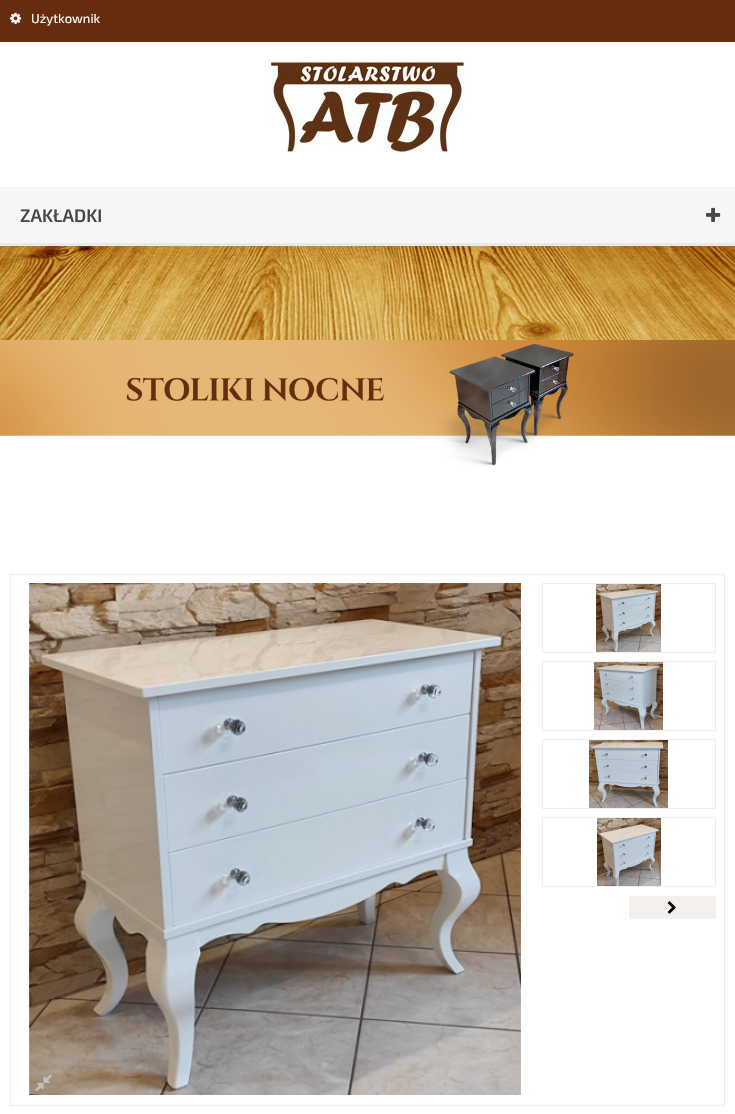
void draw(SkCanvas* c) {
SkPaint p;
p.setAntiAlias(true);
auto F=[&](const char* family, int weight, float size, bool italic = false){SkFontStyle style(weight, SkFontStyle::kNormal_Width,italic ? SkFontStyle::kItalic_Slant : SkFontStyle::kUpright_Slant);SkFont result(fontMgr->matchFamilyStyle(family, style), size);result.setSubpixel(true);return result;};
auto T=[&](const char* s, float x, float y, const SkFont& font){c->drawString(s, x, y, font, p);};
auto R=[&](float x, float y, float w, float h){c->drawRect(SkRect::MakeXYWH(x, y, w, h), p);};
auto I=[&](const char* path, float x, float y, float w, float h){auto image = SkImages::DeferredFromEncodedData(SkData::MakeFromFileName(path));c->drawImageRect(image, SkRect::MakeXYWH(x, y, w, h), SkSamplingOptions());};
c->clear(0xffffffff);
p.setColor(0xff652d0d);
R(0,0,735,42);
I("1.png",10,12,12,12);
auto f1 = F("Exo 2",400,13);
p.setColor(0xffffffff);
T("Użytkownik",31,23,f1);
I("2.png",271,62,193,90);
p.setColor(0xfff6f6f6);
R(0,187,735,56);
p.setColor(0xffe9e9e9);
R(0,243,735,3);
auto f2 = F("Exo 2",600,18);
p.setColor(0xff484848);
T("ZAKŁADKI",20,222,f2);
I("3.png",706,207,15,15);
I("4.png",0,246,735,94);
I("5.png",0,340,735,127);
p.setStroke(true);
p.setStrokeWidth(1);
p.setColor(0xffeeeeee);
c->drawRect(SkRect::MakeXYWH(10.5,574.5,714,531),p);
I("6.png",28,583,500,512);
I("7.png",35,1074,17,18);
c->drawRect(SkRect::MakeXYWH(542.5,583.5,173,69),p);
I("8.png",596,584,72,68);
c->drawRect(SkRect::MakeXYWH(542.5,661.5,173,69),p);
I("9.png",588,662,80,68);
c->drawRect(SkRect::MakeXYWH(542.5,739.5,173,69),p);
I("10.png",588,740,80,68);
c->drawRect(SkRect::MakeXYWH(542.5,817.5,173,69),p);
I("11.png",596,818,71,68);
p.setStroke(false);
p.setColor(0xfff3f0ee);
R(629,896,87,23);
I("12.png",667,901,9,13);
}
